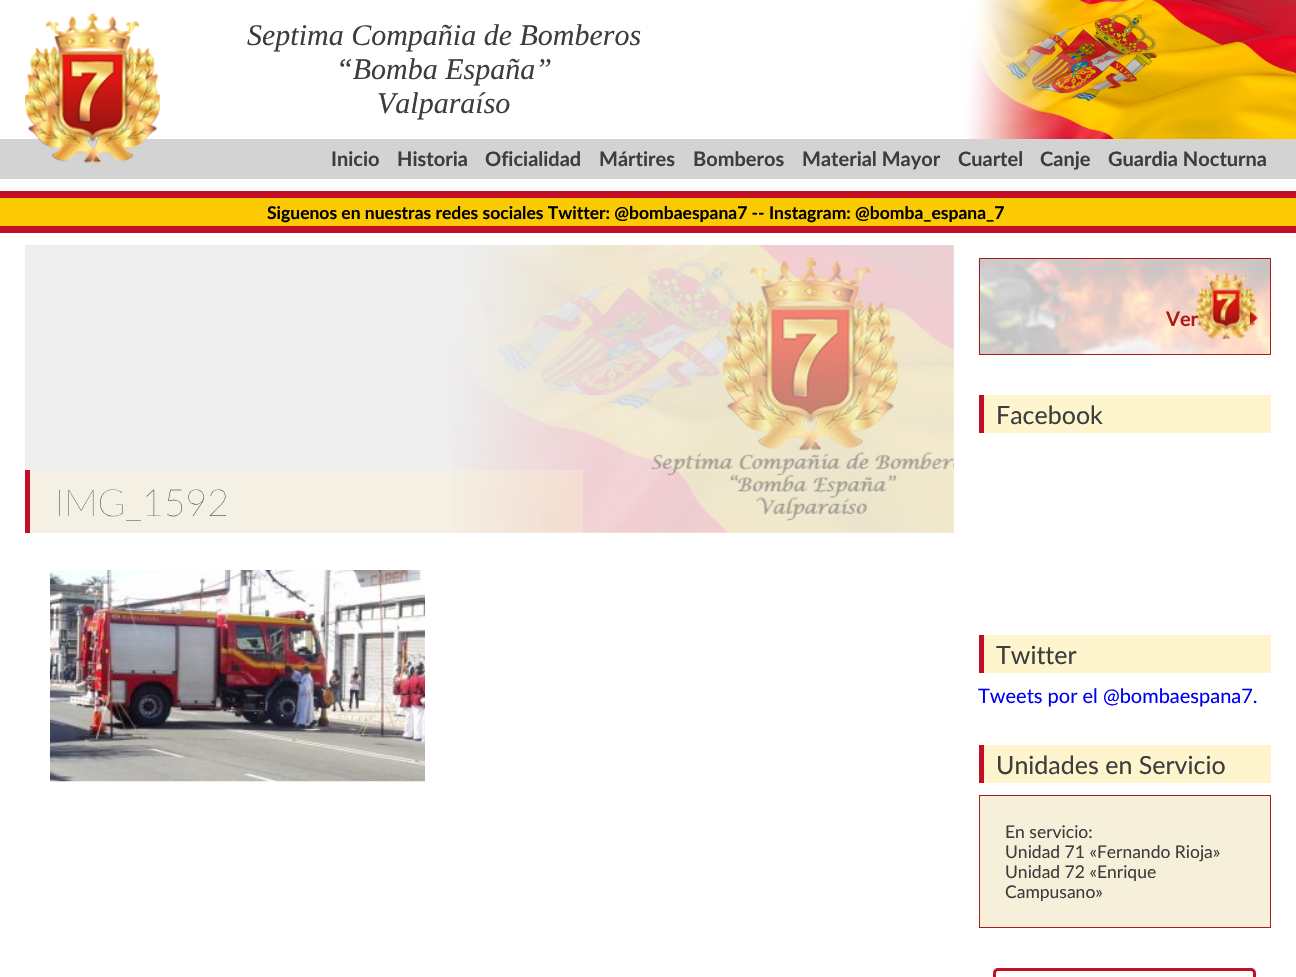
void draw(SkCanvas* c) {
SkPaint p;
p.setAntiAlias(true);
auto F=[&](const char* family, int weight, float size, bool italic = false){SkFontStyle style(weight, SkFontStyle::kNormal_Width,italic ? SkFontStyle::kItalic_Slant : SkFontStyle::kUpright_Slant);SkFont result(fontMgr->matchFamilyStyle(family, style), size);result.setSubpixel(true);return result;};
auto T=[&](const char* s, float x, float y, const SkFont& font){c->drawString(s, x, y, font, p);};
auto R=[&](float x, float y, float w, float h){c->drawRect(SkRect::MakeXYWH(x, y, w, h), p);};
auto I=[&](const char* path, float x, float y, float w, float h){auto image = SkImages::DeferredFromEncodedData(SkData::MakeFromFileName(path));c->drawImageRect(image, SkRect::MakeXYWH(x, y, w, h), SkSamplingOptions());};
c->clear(0xffffffff);
I("1.png",964,0,332,139);
auto f1 = F("Liberation Serif",400,30,true);
p.setColor(0xff3d3d3d);
T("Septima Compañia de Bomberos",247,45,f1);
T("“Bomba España”",336,79,f1);
T("Valparaíso",377,113,f1);
p.setColor(0xffd3d3d3);
R(0,139,1296,40);
I("2.png",25,13,135,150);
auto f2 = F("Lato",700,20);
p.setColor(0xff3d3d3d);
T("Inicio",331,166,f2);
T("Historia",397,166,f2);
T("Oficialidad",485,166,f2);
T("Mártires",599,166,f2);
T("Bomberos",693,166,f2);
T("Material Mayor",802,166,f2);
T("Cuartel",958,166,f2);
T("Canje",1040,166,f2);
T("Guardia Nocturna",1108,166,f2);
p.setColor(0xfffbca03);
R(0,198,1296,28);
p.setColor(0xffc20f25);
R(0,191,1296,7);
R(0,226,1296,7);
auto f3 = F("Lato",700,17.5);
p.setColor(0xff000000);
T("Siguenos en nuestras redes sociales Twitter: @bombaespana7 -- Instagram: @bomba_espana_7",267,219,f3);
p.setColor(0xffeeeeef);
R(25,245,929,288);
I("3.png",453,245,501,288);
p.setColor(0x59fef4cd);
R(30,470,553,63);
p.setColor(0xffc20f25);
R(25,470,5,63);
auto f4 = F("Lato",200,37.5);
p.setColor(0xff3d3d3d);
T("IMG_1592",55,516,f4);
I("4.png",50,570,375,212);
I("5.png",978,258,292,97);
p.setStroke(true);
p.setStrokeWidth(1);
p.setColor(0xffa81d1a);
c->drawRect(SkRect::MakeXYWH(979.5,258.5,291,96),p);
I("6.png",1250,311,8,15);
p.setStroke(false);
T("Ver",1166,326,f2);
p.setColor(0xfffef4cd);
R(984,395,287,38);
p.setColor(0xffc20f25);
R(979,395,5,38);
auto f5 = F("Lato",400,25);
p.setColor(0xff3d3d3d);
T("Facebook",996,424,f5);
p.setColor(0xfffef4cd);
R(984,635,287,38);
p.setColor(0xffc20f25);
R(979,635,5,38);
p.setColor(0xff3d3d3d);
T("Twitter",996,664,f5);
auto f6 = F("Lato",400,20);
p.setColor(0xff0000ee);
T("Tweets por el @bombaespana7.",978,703,f6);
p.setColor(0xfffef4cd);
R(984,745,287,38);
p.setColor(0xffc20f25);
R(979,745,5,38);
p.setColor(0xff3d3d3d);
T("Unidades en Servicio",996,774,f5);
p.setColor(0xfff6f0da);
c->drawRect(SkRect::MakeXYWH(979.5,795.5,291,132),p);
p.setStroke(true);
p.setColor(0xffa81d1a);
c->drawRect(SkRect::MakeXYWH(979.5,795.5,291,132),p);
auto f7 = F("Lato",400,17.5);
p.setStroke(false);
p.setColor(0xff3d3d3d);
T("En servicio:",1005,838,f7);
T("Unidad 71 «Fernando Rioja»",1005,858,f7);
T("Unidad 72 «Enrique",1005,878,f7);
T("Campusano»",1005,898,f7);
p.setStroke(true);
p.setStrokeWidth(3);
p.setColor(0xffc20f25);
c->drawRoundRect(SkRect::MakeXYWH(994.5,969.5,260,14),3.5,3.5,p);
}
